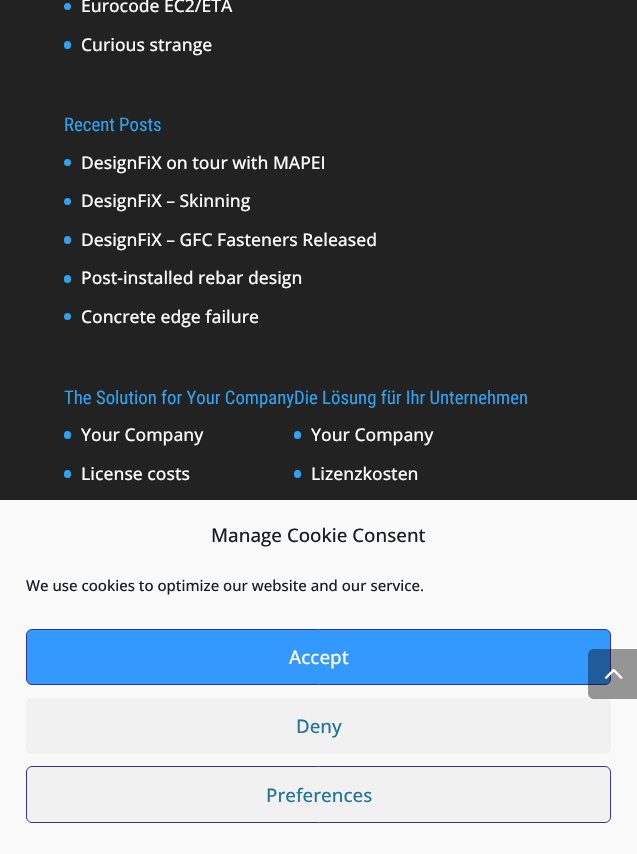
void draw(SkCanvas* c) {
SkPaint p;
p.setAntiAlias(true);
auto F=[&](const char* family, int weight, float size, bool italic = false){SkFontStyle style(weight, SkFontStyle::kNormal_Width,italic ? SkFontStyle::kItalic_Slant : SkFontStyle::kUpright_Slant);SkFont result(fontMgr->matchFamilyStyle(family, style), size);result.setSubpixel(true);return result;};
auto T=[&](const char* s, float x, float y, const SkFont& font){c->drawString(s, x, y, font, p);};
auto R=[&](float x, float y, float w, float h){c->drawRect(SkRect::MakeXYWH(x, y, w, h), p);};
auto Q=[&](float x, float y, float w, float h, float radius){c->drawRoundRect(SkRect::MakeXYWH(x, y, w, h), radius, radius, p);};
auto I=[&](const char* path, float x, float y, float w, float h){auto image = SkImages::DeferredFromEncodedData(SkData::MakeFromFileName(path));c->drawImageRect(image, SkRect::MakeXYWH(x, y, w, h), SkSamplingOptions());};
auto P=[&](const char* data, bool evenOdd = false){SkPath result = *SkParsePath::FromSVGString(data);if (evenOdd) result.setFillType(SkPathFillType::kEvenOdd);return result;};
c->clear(0xff222222);
p.setColor(0xff2ea3f2);
c->drawCircle(67.5,6.5,3.5,p);
auto f1 = F("Open Sans",500,17.5);
p.setColor(0xffffffff);
T("Eurocode EC2/ETA",81,12,f1);
p.setColor(0xff2ea3f2);
Q(64,41,7,8,3.5);
p.setColor(0xffffffff);
T("Curious strange",81,51,f1);
auto f2 = F("Roboto Condensed",400,18.75);
p.setColor(0xff2ea3f2);
T("Recent Posts",64,131,f2);
c->drawCircle(67.5,162.5,3.5,p);
p.setColor(0xffffffff);
T("DesignFiX on tour with MAPEI",81,169,f1);
p.setColor(0xff2ea3f2);
c->drawCircle(67.5,201.5,3.5,p);
p.setColor(0xffffffff);
T("DesignFiX – Skinning",81,207,f1);
p.setColor(0xff2ea3f2);
Q(64,236,7,8,3.5);
p.setColor(0xffffffff);
T("DesignFiX – GFC Fasteners Released",81,246,f1);
p.setColor(0xff2ea3f2);
Q(64,275,7,8,3.5);
p.setColor(0xffffffff);
T("Post-installed rebar design",81,284,f1);
p.setColor(0xff2ea3f2);
c->drawCircle(67.5,316.5,3.5,p);
p.setColor(0xffffffff);
T("Concrete edge failure",81,323,f1);
p.setColor(0xff2ea3f2);
T("The Solution for Your CompanyDie Lösung für Ihr Unternehmen",64,404,f2);
Q(64,431,7,8,3.5);
p.setColor(0xffffffff);
T("Your Company",81,441,f1);
p.setColor(0xff2ea3f2);
Q(64,470,7,8,3.5);
p.setColor(0xffffffff);
T("License costs",81,480,f1);
p.setColor(0xff2ea3f2);
Q(294,431,7,8,3.5);
p.setColor(0xffffffff);
T("Your Company",311,441,f1);
p.setColor(0xff2ea3f2);
Q(294,470,7,8,3.5);
p.setColor(0xffffffff);
T("Lizenzkosten",311,480,f1);
p.setColor(0xfff9f9f9);
R(0,500,637,354);
p.setColor(0xff3399ff);
c->drawRoundRect(SkRect::MakeXYWH(26.5,629.5,584,55),5.5,5.5,p);
p.setStroke(true);
p.setStrokeWidth(1);
p.setColor(0xff333399);
c->drawRoundRect(SkRect::MakeXYWH(26.5,629.5,584,55),5.5,5.5,p);
p.setStroke(false);
p.setColor(0xfff1f1f1);
Q(26,698,585,56,6);
p.setColor(0x66000000);
c->drawPath(P("M594 649h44v50h-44c-3.5 0-6-2.5-6-6v-38c0-3.5 2.5-6 6-6z"),p);
I("1.png",604,668,19,11);
auto f3 = F("Open Sans",500,18.75);
p.setColor(0xff191e23);
T("Manage Cookie Consent",211,542,f3);
auto f4 = F("Open Sans",500,15);
T("We use cookies to optimize our website and our service.",26,591,f4);
p.setColor(0xffffffff);
T("Accept",289,664,f3);
p.setColor(0xff21759b);
T("Deny",296,733,f3);
p.setColor(0xfff1f1f1);
c->drawRoundRect(SkRect::MakeXYWH(26.5,766.5,584,56),5.5,5.5,p);
p.setStroke(true);
p.setColor(0xff333399);
c->drawRoundRect(SkRect::MakeXYWH(26.5,766.5,584,56),5.5,5.5,p);
p.setStroke(false);
p.setColor(0xff21759b);
T("Preferences",266,802,f3);
}
